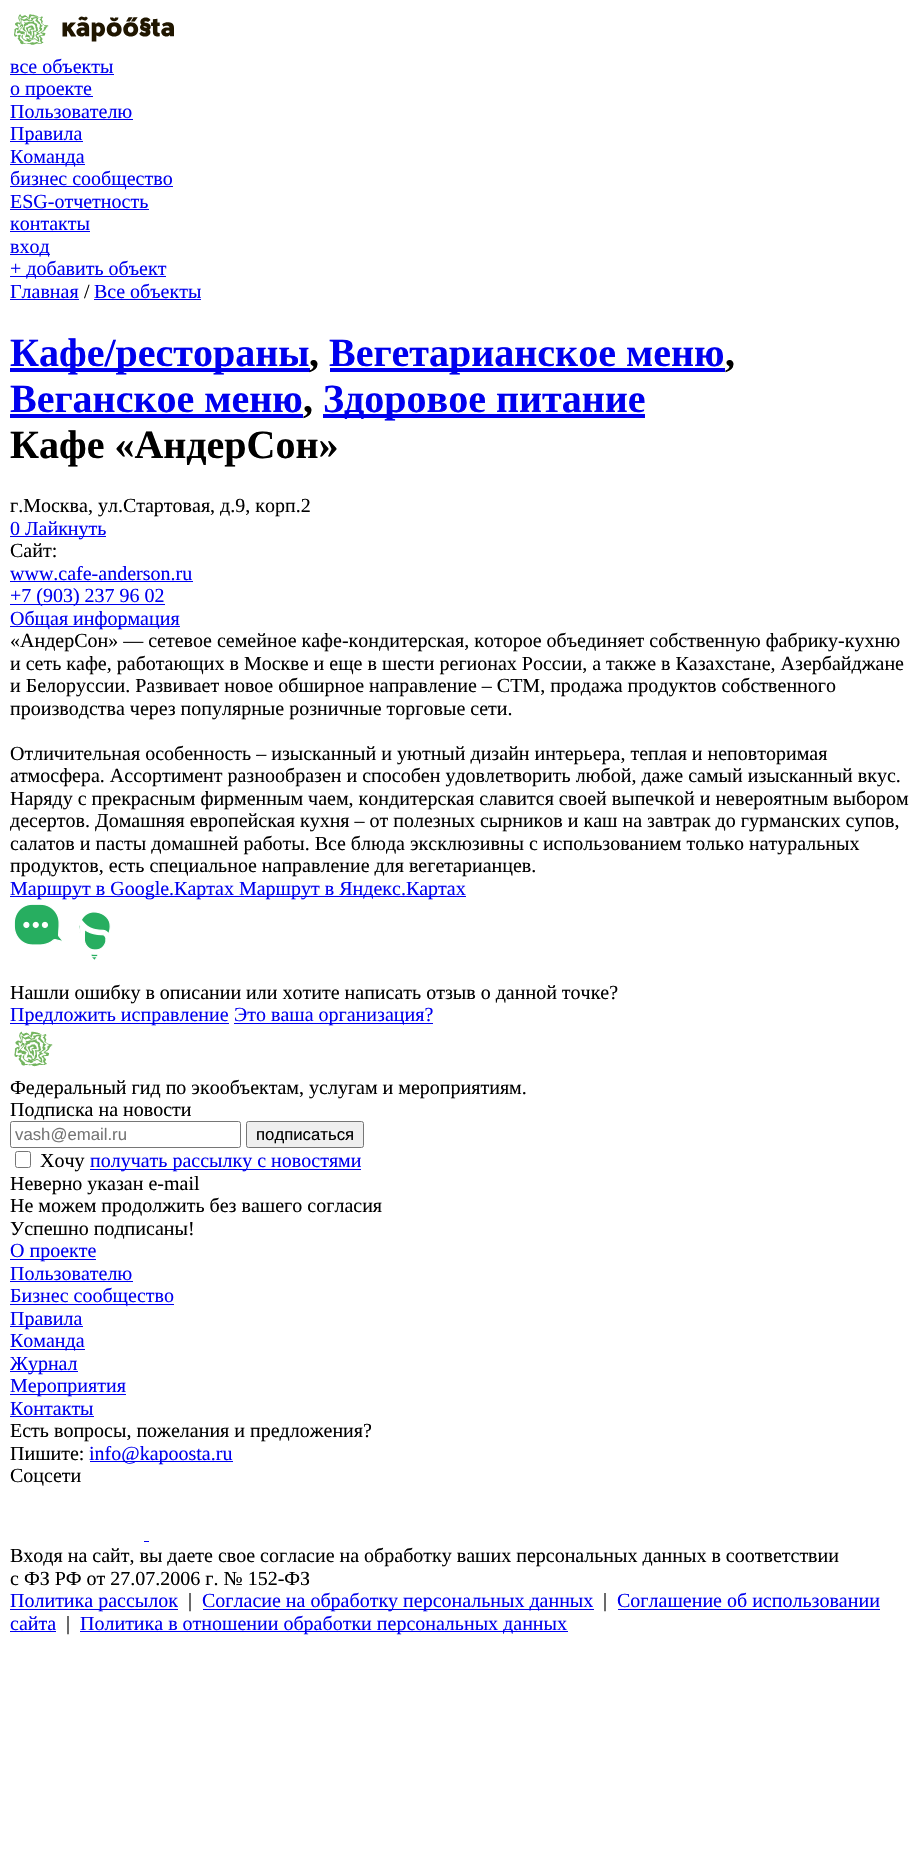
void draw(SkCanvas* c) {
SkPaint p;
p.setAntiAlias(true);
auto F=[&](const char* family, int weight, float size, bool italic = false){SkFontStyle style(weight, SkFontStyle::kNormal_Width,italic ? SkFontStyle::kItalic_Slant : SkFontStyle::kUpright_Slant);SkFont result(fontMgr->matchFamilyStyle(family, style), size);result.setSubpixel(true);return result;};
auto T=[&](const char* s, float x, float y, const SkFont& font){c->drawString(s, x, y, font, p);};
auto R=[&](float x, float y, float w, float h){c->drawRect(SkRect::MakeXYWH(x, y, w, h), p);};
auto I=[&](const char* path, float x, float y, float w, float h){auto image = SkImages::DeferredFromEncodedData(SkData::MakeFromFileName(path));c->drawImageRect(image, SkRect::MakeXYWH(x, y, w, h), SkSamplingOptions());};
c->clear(0xffffffff);
I("1.png",14,14,160,31);
auto f1 = F("Liberation Serif",400,20);
p.setColor(0xff0000ee);
T("все объекты",10,73,f1);
R(10,74,104,1);
R(10,96,83,1);
T("о проекте",10,95,f1);
T("Пользователю",10,118,f1);
R(10,119,123,1);
R(10,141,73,1);
T("Правила",10,140,f1);
R(10,164,75,1);
T("Команда",10,163,f1);
R(10,186,163,1);
T("бизнес сообщество",10,185,f1);
T("ESG-отчетность",10,208,f1);
R(10,209,139,1);
T("контакты",10,230,f1);
R(10,231,80,1);
R(10,254,40,1);
T("вход",10,253,f1);
R(10,276,156,1);
T("+ добавить объект",10,275,f1);
T("Главная",10,298,f1);
R(10,299,69,1);
p.setColor(0xff000000);
T("/",84,298,f1);
p.setColor(0xff0000ee);
T("Все объекты",94,298,f1);
R(94,299,107,1);
R(10,368,300,4);
auto f2 = F("Liberation Serif",700,40);
T("Кафе/рестораны",10,366,f2);
p.setColor(0xff000000);
T(",",309,366,f2);
p.setColor(0xff0000ee);
R(330,368,395,4);
T("Вегетарианское меню",329,366,f2);
p.setColor(0xff000000);
T(",",725,366,f2);
p.setColor(0xff0000ee);
T("Веганское меню",10,412,f2);
R(10,414,293,4);
p.setColor(0xff000000);
T(",",303,412,f2);
p.setColor(0xff0000ee);
R(323,414,322,4);
T("Здоровое питание",323,412,f2);
p.setColor(0xff000000);
T("Кафе «АндерСон»",10,458,f2);
T("г.Москва, ул.Стартовая, д.9, корп.2",10,512,f1);
p.setColor(0xff0000ee);
R(10,536,96,1);
T("0 Лайкнуть",10,535,f1);
p.setColor(0xff000000);
T("Сайт:",10,557,f1);
p.setColor(0xff0000ee);
T("www.cafe-anderson.ru",10,580,f1);
R(10,581,183,1);
R(10,604,155,1);
T("+7 (903) 237 96 02",10,602,f1);
R(10,626,170,1);
T("Общая информация",10,625,f1);
p.setColor(0xff000000);
T("«АндерСон» — сетевое семейное кафе-кондитерская, которое объединяет собственную фабрику-кухню",10,647,f1);
T("и сеть кафе, работающих в Москве и еще в шести регионах России, а также в Казахстане, Азербайджане",10,670,f1);
T("и Белоруссии. Развивает новое обширное направление – СТМ, продажа продуктов собственного",10,692,f1);
T("производства через популярные розничные торговые сети.",10,715,f1);
T("Отличительная особенность – изысканный и уютный дизайн интерьера, теплая и неповторимая",10,760,f1);
T("атмосфера. Ассортимент разнообразен и способен удовлетворить любой, даже самый изысканный вкус.",10,782,f1);
T("Наряду с прекрасным фирменным чаем, кондитерская славится своей выпечкой и невероятным выбором",10,805,f1);
T("десертов. Домашняя европейская кухня – от полезных сырников и каш на завтрак до гурманских супов,",10,827,f1);
T("салатов и пасты домашней работы. Все блюда эксклюзивны с использованием только натуральных",10,850,f1);
T("продуктов, есть специальное направление для вегетарианцев.",10,872,f1);
p.setColor(0xff0000ee);
R(10,896,456,1);
T("Маршрут в Google.Картах Маршрут в Яндекс.Картах",10,895,f1);
I("2.png",14,904,97,56);
p.setColor(0xff000000);
T("Нашли ошибку в описании или хотите написать отзыв о данной точке?",10,999,f1);
p.setColor(0xff0000ee);
R(10,1023,219,1);
T("Предложить исправление",10,1021,f1);
R(234,1023,199,1);
T("Это ваша организация?",234,1021,f1);
I("3.png",14,1031,39,36);
p.setColor(0xff000000);
T("Федеральный гид по экообъектам, услугам и мероприятиям.",10,1094,f1);
T("Подписка на новости",10,1116,f1);
p.setStroke(true);
p.setStrokeWidth(1);
p.setColor(0xff767676);
c->drawRoundRect(SkRect::MakeXYWH(10.5,1121.5,230,26),2,2,p);
auto f3 = F("Liberation Sans",400,16.75);
p.setStroke(false);
p.setColor(0xff757575);
T("vash@email.ru",15,1140,f3);
p.setColor(0xffefefef);
c->drawRoundRect(SkRect::MakeXYWH(246.5,1121.5,117,26),2,2,p);
p.setStroke(true);
p.setColor(0xff767676);
c->drawRoundRect(SkRect::MakeXYWH(246.5,1121.5,117,26),2,2,p);
p.setStroke(false);
p.setColor(0xff000000);
T("подписаться",256,1140,f3);
p.setStroke(true);
p.setColor(0xff767676);
c->drawRoundRect(SkRect::MakeXYWH(15.5,1151.5,15,16),2,2,p);
p.setStroke(false);
p.setColor(0xff000000);
T("Хочу",40,1167,f1);
p.setColor(0xff0000ee);
R(90,1169,271,1);
T("получать рассылку с новостями",90,1167,f1);
p.setColor(0xff000000);
T("Неверно указан e-mail",10,1190,f1);
T("Не можем продолжить без вашего согласия",10,1212,f1);
T("Успешно подписаны!",10,1235,f1);
p.setColor(0xff0000ee);
R(10,1259,86,1);
T("О проекте",10,1257,f1);
T("Пользователю",10,1280,f1);
R(10,1281,123,1);
R(10,1304,164,1);
T("Бизнес сообщество",10,1302,f1);
R(10,1326,73,1);
T("Правила",10,1325,f1);
R(10,1349,75,1);
T("Команда",10,1347,f1);
R(10,1371,68,1);
T("Журнал",10,1370,f1);
R(10,1394,116,1);
T("Мероприятия",10,1392,f1);
T("Контакты",10,1415,f1);
R(10,1416,84,1);
p.setColor(0xff000000);
T("Есть вопросы, пожелания и предложения?",10,1437,f1);
T("Пишите:",10,1460,f1);
p.setColor(0xff0000ee);
R(90,1461,143,1);
T("info@kapoosta.ru",89,1460,f1);
p.setColor(0xff000000);
T("Соцсети",10,1482,f1);
p.setColor(0xff0000ee);
R(144,1541,5,1);
p.setColor(0xff000000);
T("Входя на сайт, вы даете свое согласие на обработку ваших персональных данных в соответствии",10,1562,f1);
T("с ФЗ РФ от 27.07.2006 г. № 152-ФЗ",10,1585,f1);
p.setColor(0xff0000ee);
R(10,1609,168,1);
T("Политика рассылок",10,1607,f1);
p.setColor(0xff000000);
T("|",188,1607,f1);
p.setColor(0xff0000ee);
R(203,1609,391,1);
T("Согласие на обработку персональных данных",202,1607,f1);
p.setColor(0xff000000);
T("|",603,1607,f1);
p.setColor(0xff0000ee);
T("Соглашение об использовании",617,1607,f1);
R(618,1609,262,1);
T("сайта",10,1630,f1);
R(10,1631,46,1);
p.setColor(0xff000000);
T("|",66,1630,f1);
p.setColor(0xff0000ee);
R(80,1631,488,1);
T("Политика в отношении обработки персональных данных",80,1630,f1);
}
